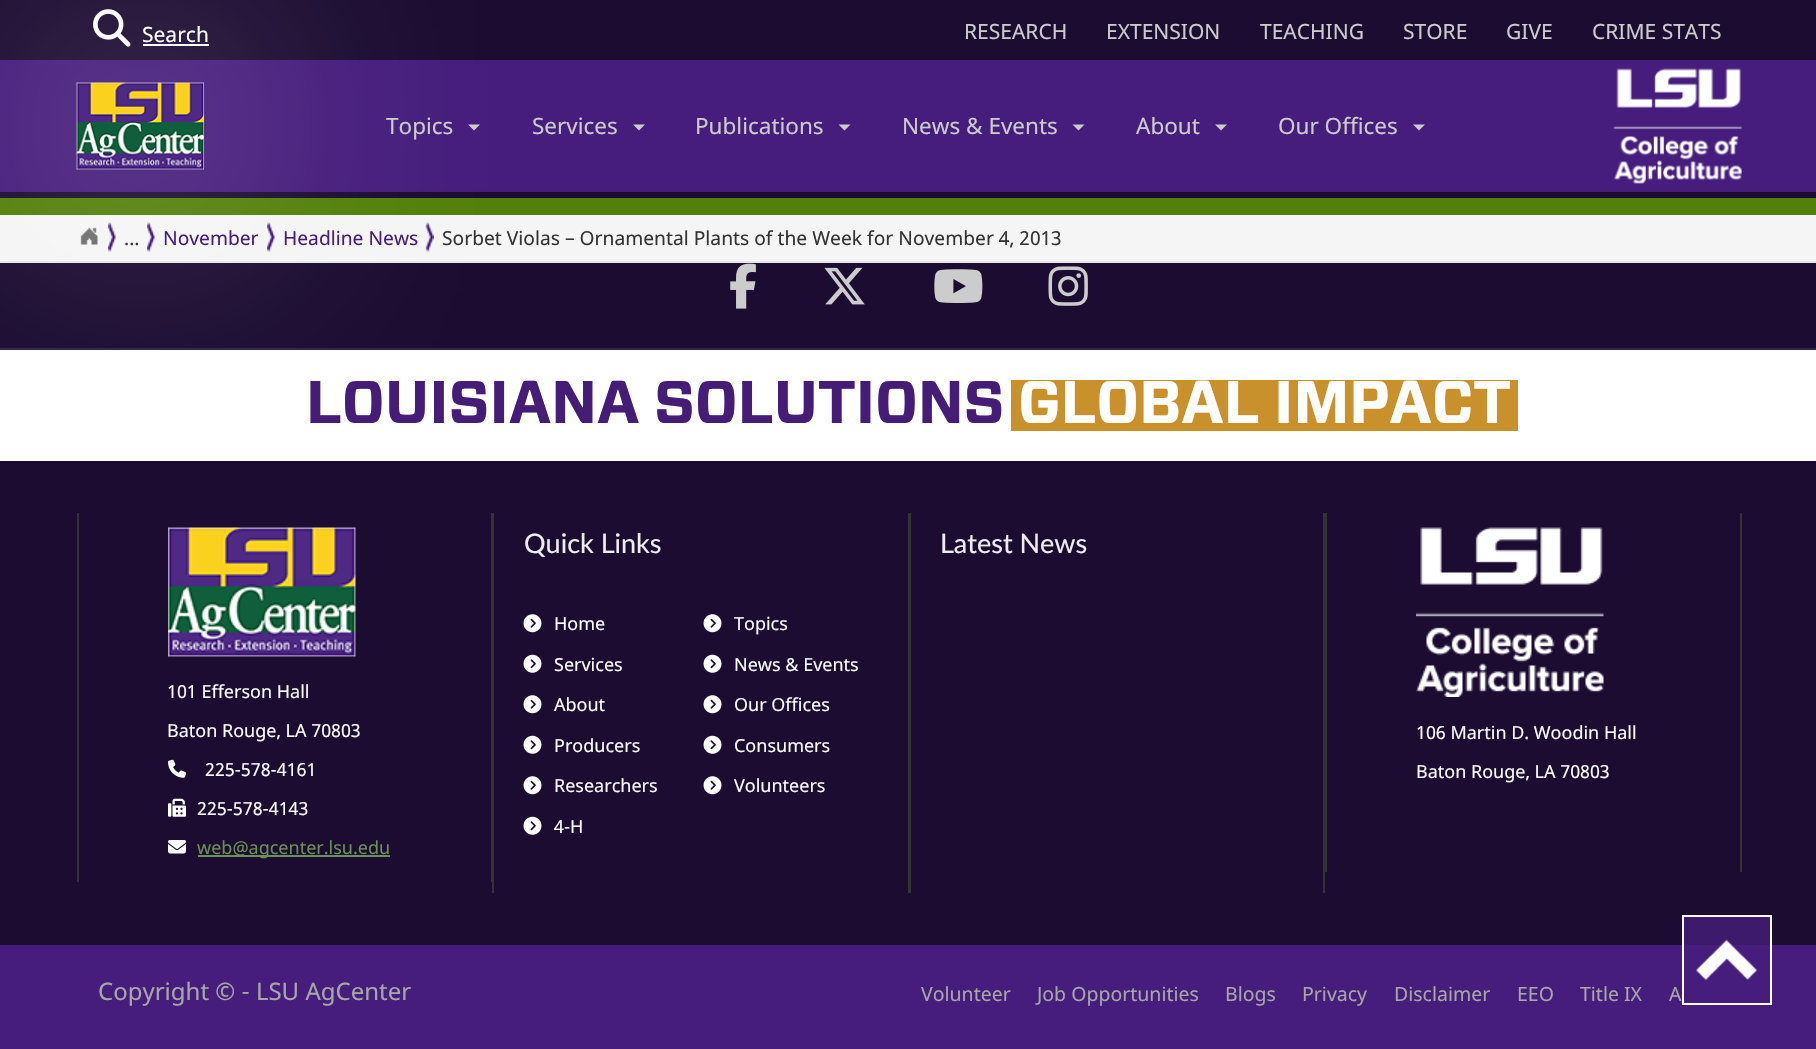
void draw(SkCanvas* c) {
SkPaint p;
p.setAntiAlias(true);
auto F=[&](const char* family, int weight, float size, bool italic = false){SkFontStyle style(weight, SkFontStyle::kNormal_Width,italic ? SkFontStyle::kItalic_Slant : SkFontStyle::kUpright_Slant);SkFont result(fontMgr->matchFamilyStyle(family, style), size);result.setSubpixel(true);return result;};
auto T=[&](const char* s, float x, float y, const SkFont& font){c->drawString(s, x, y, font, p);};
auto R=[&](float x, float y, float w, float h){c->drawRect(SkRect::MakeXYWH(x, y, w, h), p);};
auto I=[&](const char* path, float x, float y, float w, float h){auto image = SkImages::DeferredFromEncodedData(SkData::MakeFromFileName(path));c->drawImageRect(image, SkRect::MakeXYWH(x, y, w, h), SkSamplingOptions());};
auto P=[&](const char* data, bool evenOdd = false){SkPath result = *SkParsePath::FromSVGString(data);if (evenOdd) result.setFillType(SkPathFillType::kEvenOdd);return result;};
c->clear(0xff1c0c32);
p.setColor(0xff461d7c);
R(0,60,1816,132);
p.setColor(0xffe7e7e7);
R(0,261,1816,2);
p.setColor(0xff53800a);
R(0,198,1816,17);
p.setColor(0xfff5f5f5);
R(0,215,1816,46);
p.setColor(0xff2d2745);
R(0,348,1816,2);
p.setColor(0xffffffff);
R(0,350,1816,111);
p.setColor(0xff333333);
R(491,513,1,369);
R(77,513,2,369);
I("13.png",168,527,188,130);
R(492,513,2,380);
I("17.png",523,614,19,19);
p.setColor(0xccffffff);
p.setMaskFilter(SkMaskFilter::MakeBlur(kNormal_SkBlurStyle, 150));
c->drawRect(SkRect::MakeXYWH(75,81,131,90),p);
p.setMaskFilter(nullptr);
I("1.png",93,9,38,38);
auto f1 = F("Noto Sans",400,21);
p.setColor(0xffffffff);
T("Search",142,42,f1);
R(143,44,66,2);
p.setColor(0xffcccccc);
T("RESEARCH",964,39,f1);
T("EXTENSION",1106,39,f1);
T("TEACHING",1260,39,f1);
T("STORE",1403,39,f1);
T("GIVE",1506,39,f1);
T("CRIME STATS",1592,39,f1);
I("2.png",76,82,128,88);
auto f2 = F("Noto Sans",400,22.5);
T("Topics",386,134,f2);
c->drawPath(P("M468 124.5h12l-6 6z"),p);
T("Services",532,134,f2);
c->drawPath(P("M633 124.5h12l-6 6z"),p);
T("Publications",695,134,f2);
c->drawPath(P("M838.5 124.5h12l-6 6z"),p);
T("News & Events",902,134,f2);
c->drawPath(P("M1072.5 124.5h12l-6 6z"),p);
T("About",1136,134,f2);
c->drawPath(P("M1215 124.5h12l-6 6z"),p);
T("Our Offices",1278,134,f2);
c->drawPath(P("M1413 124.5h12l-6 6z"),p);
I("3.png",1613,68,129,116);
I("4.png",108,222,8,30);
I("5.png",80,227,18,18);
I("6.png",147,222,8,30);
auto f3 = F("Noto Sans",400,19.25);
p.setColor(0xff333333);
T("...",124,245,f3);
I("7.png",267,222,8,30);
p.setColor(0xff461d7c);
T("November",163,245,f3);
I("8.png",425,222,9,31);
T("Headline News",283,245,f3);
p.setColor(0xff333333);
T("Sorbet Violas – Ornamental Plants of the Week for November 4, 2013",442,245,f3);
I("9.png",730,263,26,46);
I("10.png",824,267,41,38);
I("11.png",934,269,49,34);
I("12.png",1048,266,40,40);
auto f4 = F("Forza",700,60);
p.setColor(0xff461d76);
T("LOUISIANA SOLUTIONS",306,423,f4);
p.setColor(0xffc9912b);
R(1011,380,507,51);
p.setColor(0xffffffff);
T("GLOBAL IMPACT",1018,423,f4);
auto f5 = F("Noto Sans",400,18);
T("101 Efferson Hall",167,698,f5);
T("Baton Rouge, LA 70803",167,737,f5);
I("14.png",168,759,18,19);
T("225-578-4161",205,776,f5);
I("15.png",168,798,18,19);
T("225-578-4143",197,815,f5);
I("16.png",168,840,18,14);
p.setColor(0xff6b9256);
R(198,855,192,2);
T("web@agcenter.lsu.edu",197,854,f5);
p.setColor(0xff333333);
R(908,513,3,380);
auto f6 = F("Lato",400,27);
p.setColor(0xffeeeeee);
T("Quick Links",524,553,f6);
p.setColor(0xffffffff);
T("Home",554,630,f5);
I("17.png",703,614,19,19);
T("Topics",734,630,f5);
I("18.png",523,654,19,19);
T("Services",554,671,f5);
I("18.png",703,654,19,19);
T("News & Events",734,671,f5);
I("17.png",523,695,19,19);
T("About",554,711,f5);
I("17.png",703,695,19,19);
T("Our Offices",734,711,f5);
I("18.png",523,735,19,19);
T("Producers",554,752,f5);
I("18.png",703,735,19,19);
T("Consumers",734,752,f5);
I("17.png",523,776,19,19);
T("Researchers",554,792,f5);
I("17.png",703,776,19,19);
T("Volunteers",734,792,f5);
I("18.png",523,816,19,19);
T("4-H",554,833,f5);
p.setColor(0xff333333);
R(1323,513,2,380);
p.setColor(0xffeeeeee);
T("Latest News",940,553,f6);
p.setColor(0xff333333);
R(1740,513,2,359);
R(1325,513,2,359);
I("19.png",1416,527,188,170);
p.setColor(0xffffffff);
T("106 Martin D. Woodin Hall",1416,739,f5);
T("Baton Rouge, LA 70803",1416,778,f5);
p.setColor(0xff461d7c);
R(0,945,1816,104);
auto f7 = F("Noto Sans",400,24);
p.setColor(0xffa7a7a7);
T("Copyright © - LSU AgCenter",98,1000,f7);
auto f8 = F("Noto Sans",400,19.5);
T("Volunteer",921,1001,f8);
T("Job Opportunities",1037,1001,f8);
T("Blogs",1225,1001,f8);
T("Privacy",1302,1001,f8);
T("Disclaimer",1394,1001,f8);
T("EEO",1517,1001,f8);
T("Title IX",1580,1001,f8);
T("A",1669,1001,f8);
p.setColor(0xcc461d7c);
R(1684,917,86,28);
I("20.png",1696,939,61,42);
p.setStroke(true);
p.setStrokeWidth(2);
p.setColor(0xffffffff);
c->drawRect(SkRect::MakeXYWH(1683,916,88,88),p);
}
